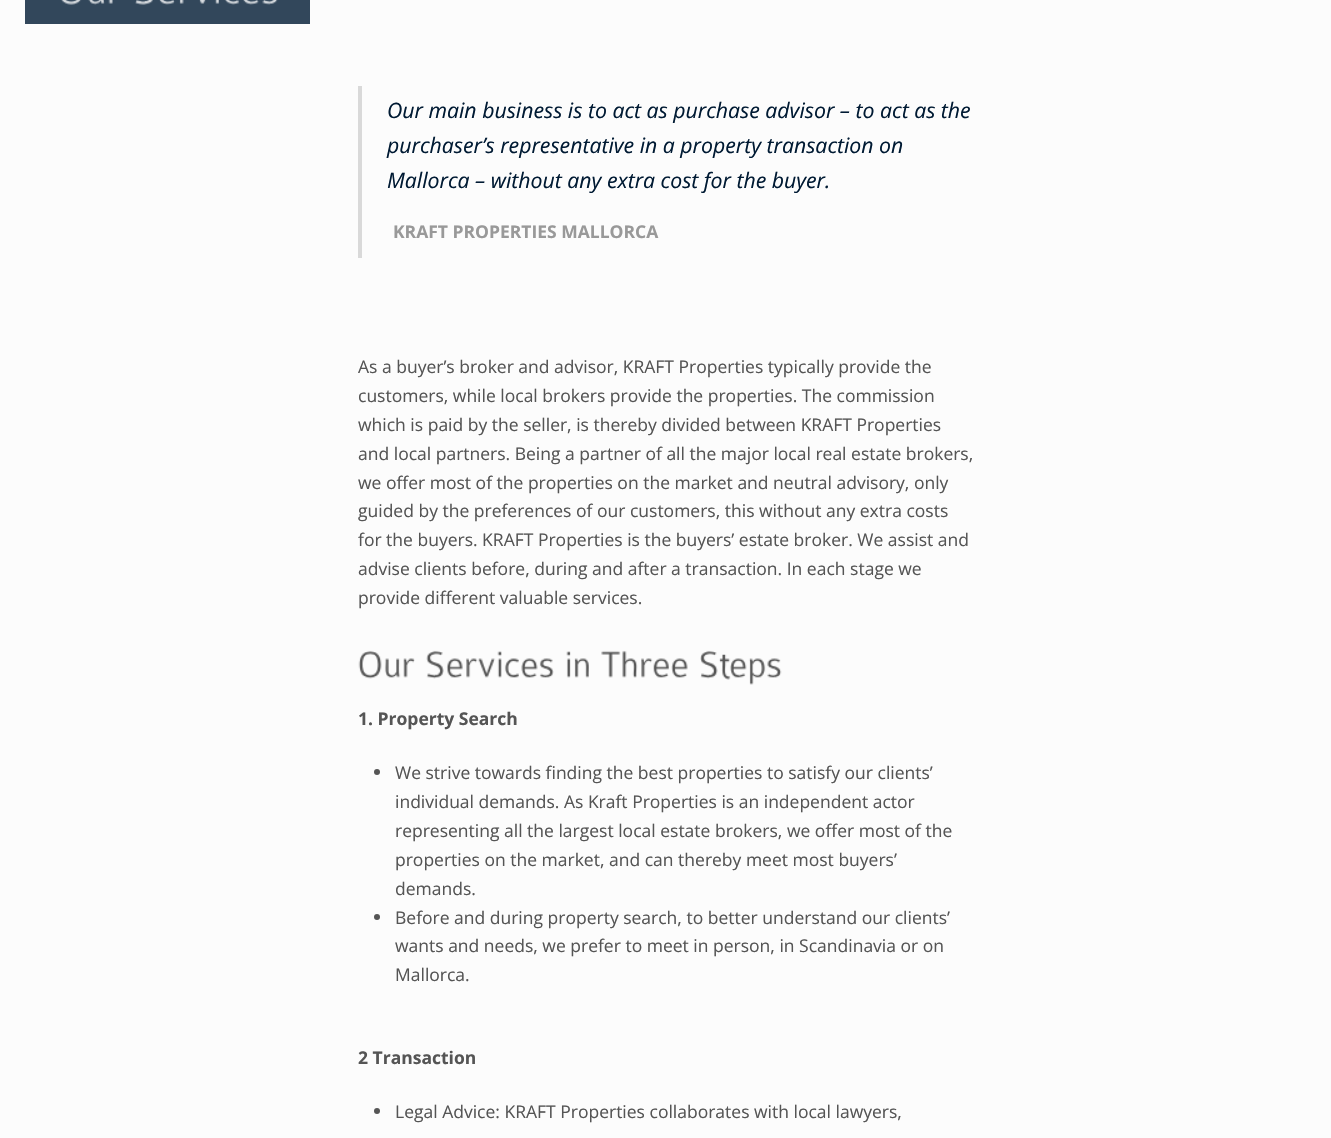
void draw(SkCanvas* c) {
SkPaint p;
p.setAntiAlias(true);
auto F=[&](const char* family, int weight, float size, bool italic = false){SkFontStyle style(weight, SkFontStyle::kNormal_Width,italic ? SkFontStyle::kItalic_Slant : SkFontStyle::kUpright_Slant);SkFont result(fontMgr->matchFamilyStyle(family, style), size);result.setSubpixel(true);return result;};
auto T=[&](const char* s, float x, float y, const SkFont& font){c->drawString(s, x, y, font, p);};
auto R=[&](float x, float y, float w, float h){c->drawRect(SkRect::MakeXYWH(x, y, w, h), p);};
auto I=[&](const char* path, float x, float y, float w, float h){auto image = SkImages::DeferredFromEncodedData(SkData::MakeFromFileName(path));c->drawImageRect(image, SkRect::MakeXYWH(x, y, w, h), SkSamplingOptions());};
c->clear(0xfffcfcfc);
p.setColor(0xff32475b);
R(25,0,285,24);
I("1.png",61,0,52,5);
I("2.png",135,0,143,5);
p.setColor(0xffd9d9d9);
R(358,86,4,172);
auto f1 = F("Open Sans",400,21.25,true);
p.setColor(0xff001a33);
T("Our main business is to act as purchase advisor – to act as the",387,118,f1);
T("purchaser’s representative in a property transaction on",387,153,f1);
T("Mallorca – without any extra cost for the buyer.",387,188,f1);
auto f2 = F("Open Sans",700,17.5);
p.setColor(0xff999999);
T("KRAFT PROPERTIES MALLORCA",393,238,f2);
auto f3 = F("Open Sans",400,17.5);
p.setColor(0xff555555);
T("As a buyer’s broker and advisor, KRAFT Properties typically provide the",358,373,f3);
T("customers, while local brokers provide the properties. The commission",358,402,f3);
T("which is paid by the seller, is thereby divided between KRAFT Properties",358,431,f3);
T("and local partners. Being a partner of all the major local real estate brokers,",358,460,f3);
T("we offer most of the properties on the market and neutral advisory, only",358,489,f3);
T("guided by the preferences of our customers, this without any extra costs",358,517,f3);
T("for the buyers. KRAFT Properties is the buyers’ estate broker. We assist and",358,546,f3);
T("advise clients before, during and after a transaction. In each stage we",358,575,f3);
T("provide different valuable services.",358,604,f3);
I("3.png",358,650,57,29);
I("4.png",426,650,128,29);
I("5.png",566,651,23,27);
I("6.png",601,650,87,28);
I("7.png",700,650,82,35);
T("1. Property Search",358,725,f2);
c->drawCircle(377,772,3,p);
T("We strive towards finding the best properties to satisfy our clients’",395,779,f3);
T("individual demands. As Kraft Properties is an independent actor",395,808,f3);
T("representing all the largest local estate brokers, we offer most of the",395,837,f3);
T("properties on the market, and can thereby meet most buyers’",395,866,f3);
T("demands.",395,895,f3);
c->drawCircle(377,917,3,p);
T("Before and during property search, to better understand our clients’",395,924,f3);
T("wants and needs, we prefer to meet in person, in Scandinavia or on",395,952,f3);
T("Mallorca.",395,981,f3);
T("2 Transaction",358,1064,f2);
c->drawCircle(377,1111,3,p);
T("Legal Advice: KRAFT Properties collaborates with local lawyers,",395,1118,f3);
}
